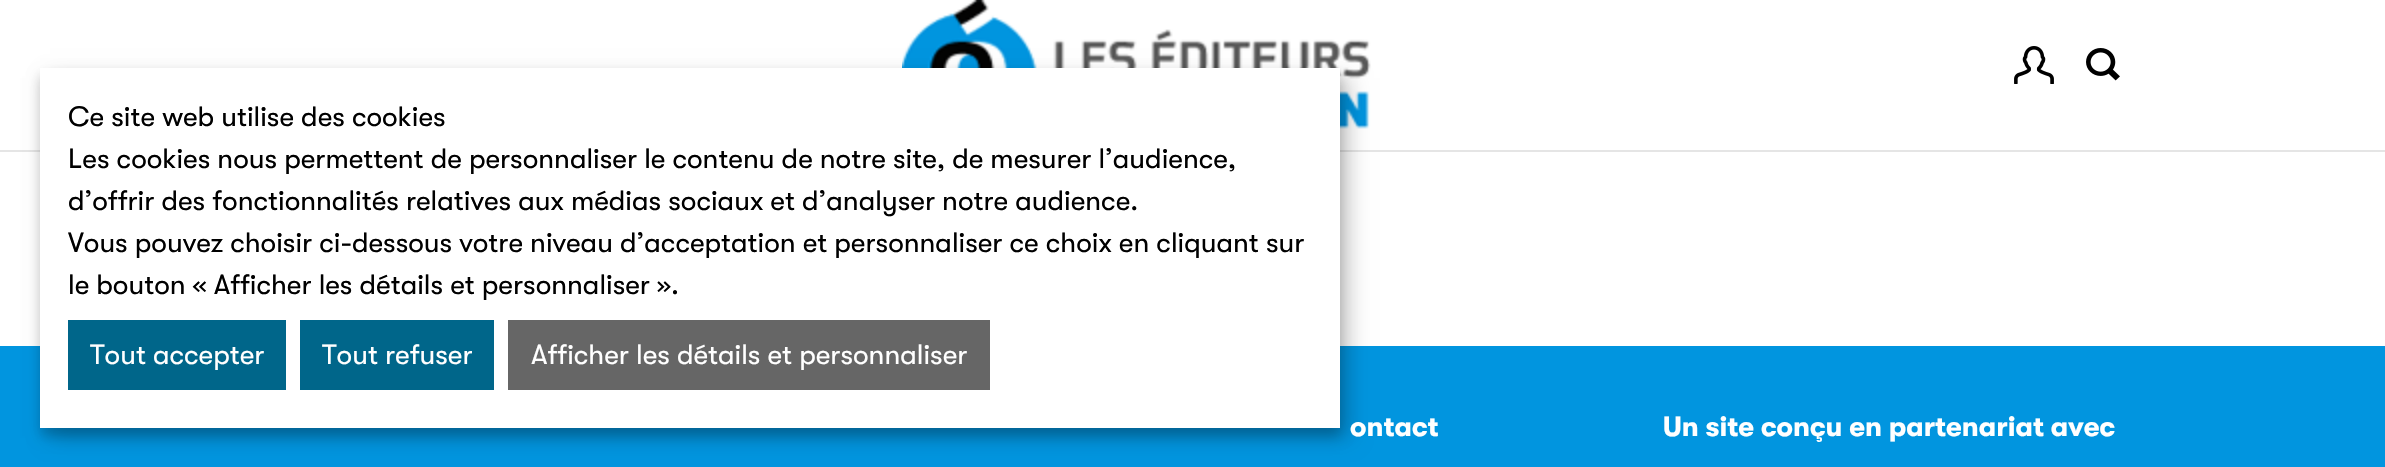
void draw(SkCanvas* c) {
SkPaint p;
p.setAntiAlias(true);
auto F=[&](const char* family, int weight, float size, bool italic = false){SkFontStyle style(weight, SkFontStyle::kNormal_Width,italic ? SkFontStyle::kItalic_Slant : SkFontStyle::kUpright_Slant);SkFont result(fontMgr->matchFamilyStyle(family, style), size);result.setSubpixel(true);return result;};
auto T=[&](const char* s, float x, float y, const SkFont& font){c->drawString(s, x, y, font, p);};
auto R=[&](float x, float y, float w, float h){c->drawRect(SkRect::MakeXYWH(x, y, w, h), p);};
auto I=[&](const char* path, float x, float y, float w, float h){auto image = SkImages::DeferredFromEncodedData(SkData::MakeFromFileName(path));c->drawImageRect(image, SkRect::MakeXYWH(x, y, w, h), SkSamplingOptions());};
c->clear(0xffffffff);
p.setColor(0xffe5e5e5);
R(0,150,2385,2);
I("1.png",902,0,469,150);
I("2.png",2014,46,40,38);
I("3.png",2086,48,34,33);
p.setColor(0xff0195df);
R(0,346,2385,121);
p.setColor(0x30000000);
p.setMaskFilter(SkMaskFilter::MakeBlur(kNormal_SkBlurStyle, 10));
c->drawRect(SkRect::MakeXYWH(50,78,1300,360),p);
p.setMaskFilter(nullptr);
p.setColor(0x33000000);
p.setMaskFilter(SkMaskFilter::MakeBlur(kNormal_SkBlurStyle, 6));
c->drawRect(SkRect::MakeXYWH(40,76,1300,360),p);
p.setMaskFilter(nullptr);
p.setColor(0xffffffff);
R(40,68,1300,360);
auto f1 = F("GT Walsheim",400,28);
p.setColor(0xff000000);
T("Ce site web utilise des cookies",68,126,f1);
T("Les cookies nous permettent de personnaliser le contenu de notre site, de mesurer l’audience,",68,168,f1);
T("d’offrir des fonctionnalités relatives aux médias sociaux et d’analyser notre audience.",68,210,f1);
T("Vous pouvez choisir ci-dessous votre niveau d’acceptation et personnaliser ce choix en cliquant sur",68,252,f1);
T("le bouton « Afficher les détails et personnaliser ».",68,294,f1);
p.setColor(0xff00668a);
R(68,320,218,70);
p.setColor(0xffffffff);
T("Tout accepter",90,364,f1);
p.setColor(0xff00668a);
R(300,320,194,70);
p.setColor(0xffffffff);
T("Tout refuser",322,364,f1);
p.setColor(0xff666666);
R(508,320,482,70);
p.setColor(0xffffffff);
T("Afficher les détails et personnaliser",531,364,f1);
auto f2 = F("GT Walsheim",700,28);
T("ontact",1350,436,f2);
T("Un site conçu en partenariat avec",1663,436,f2);
}
